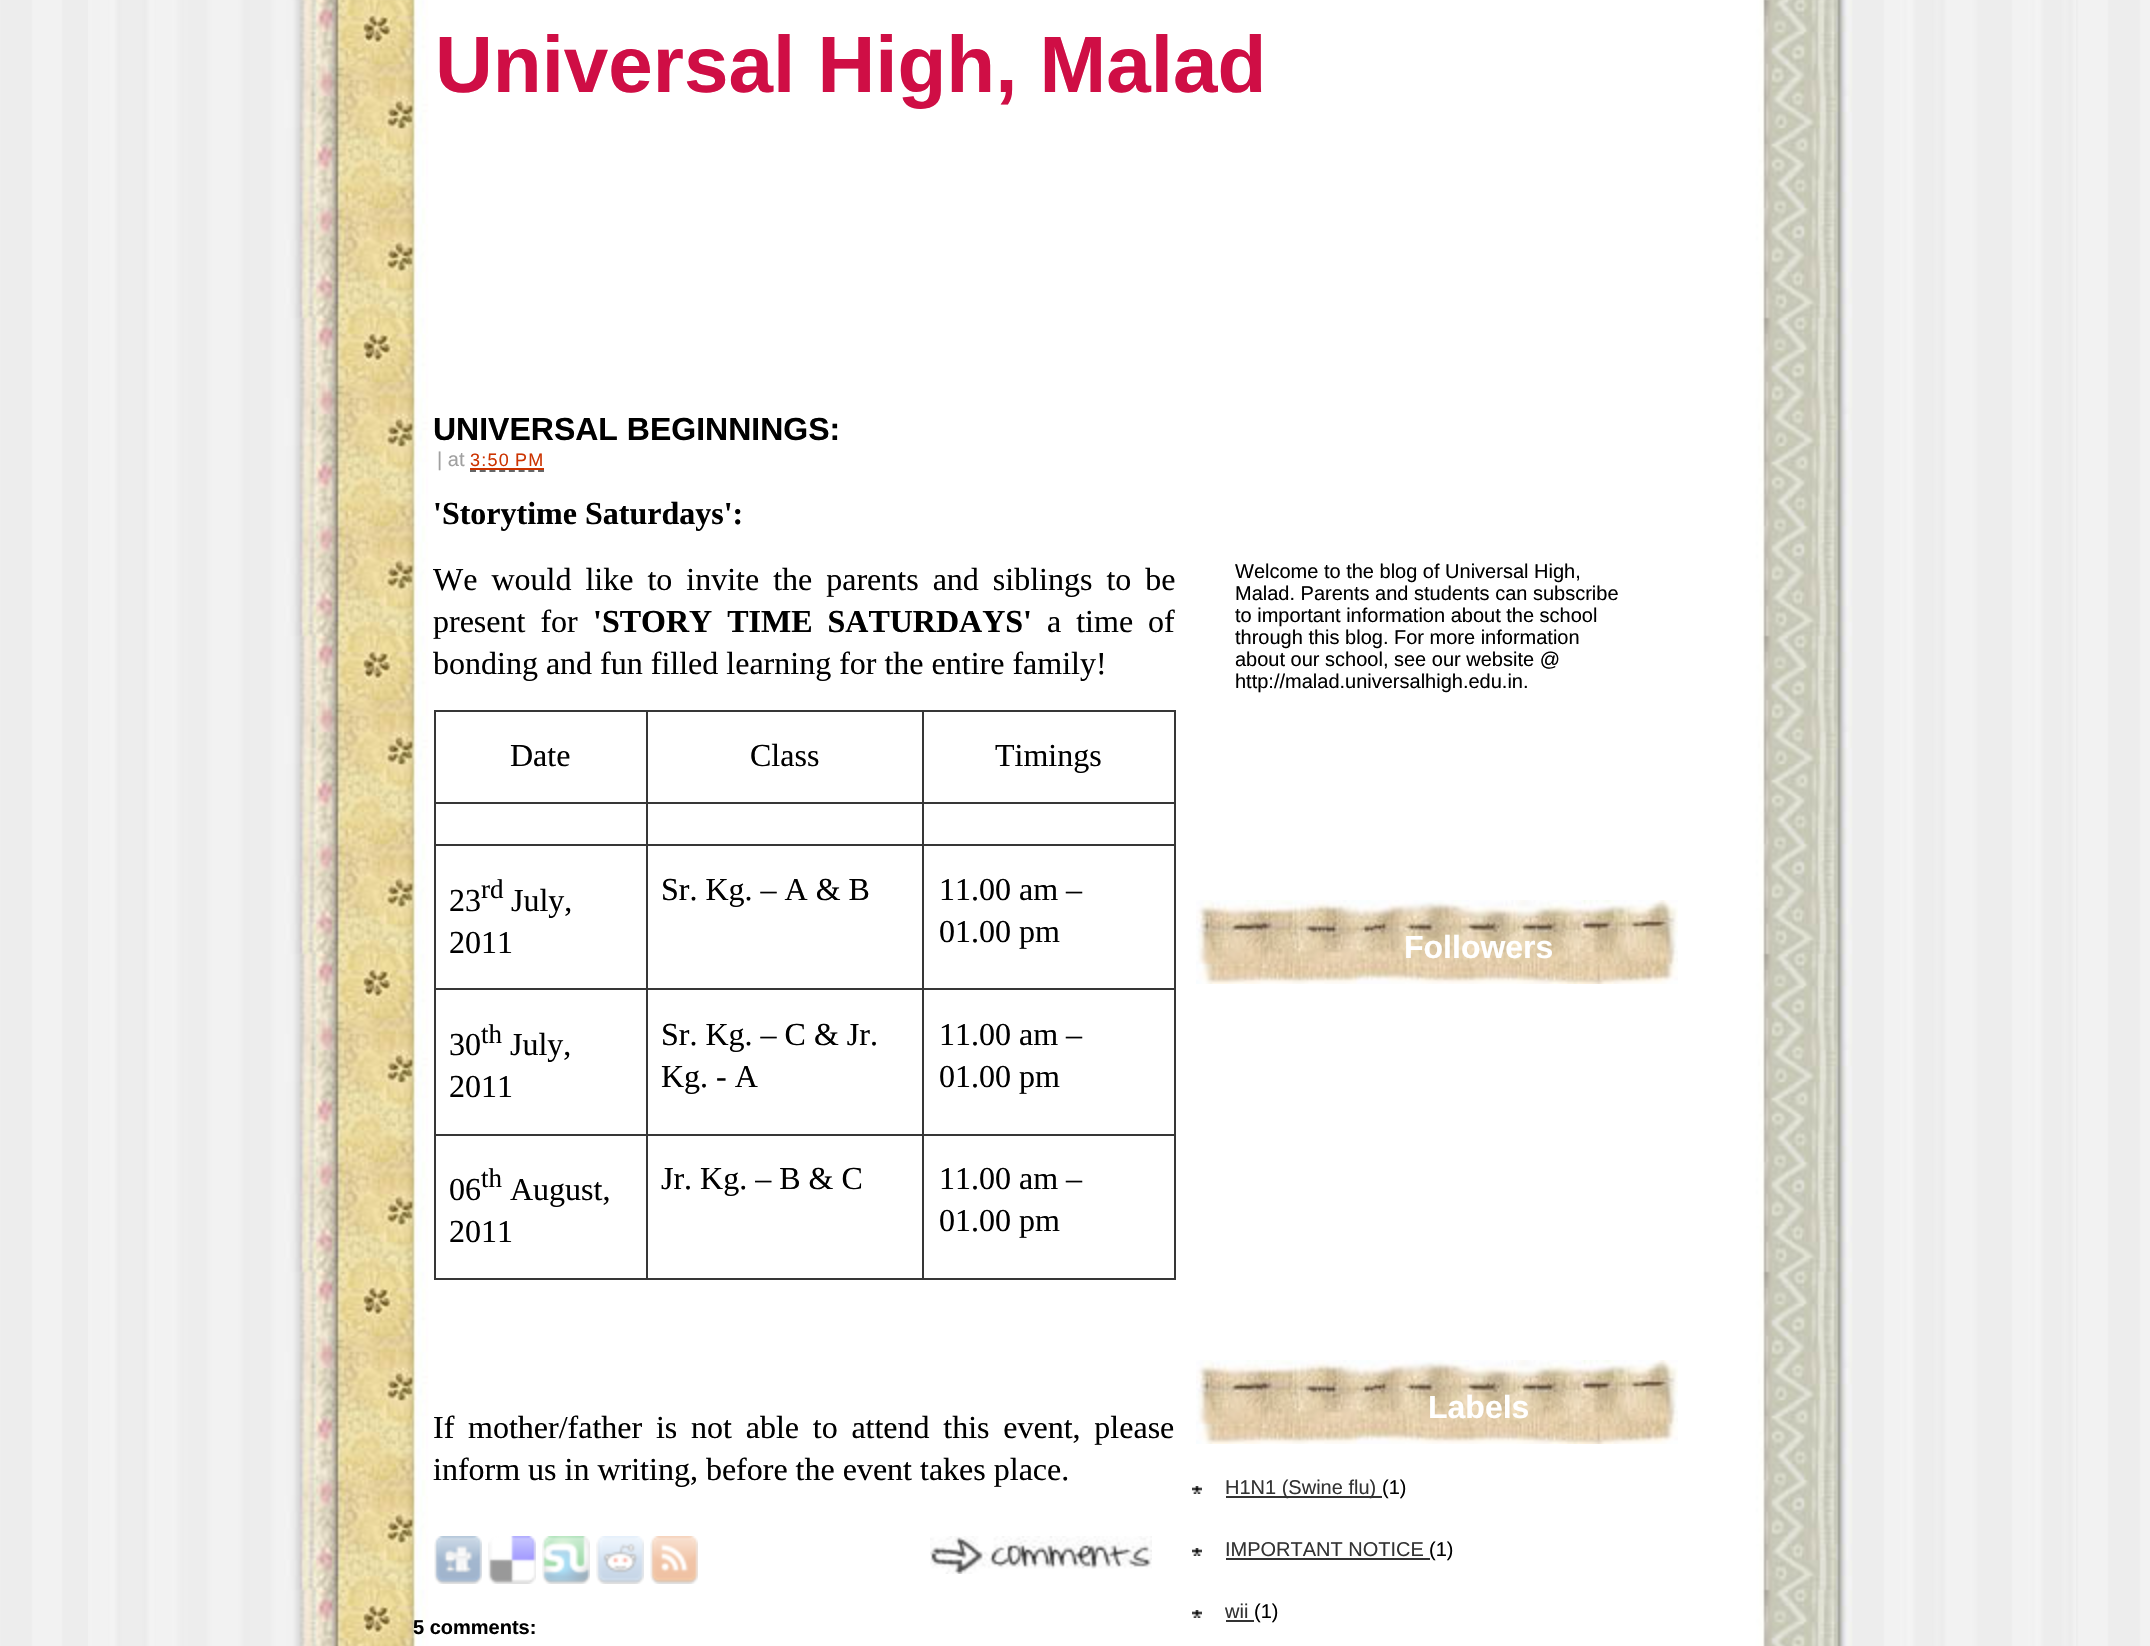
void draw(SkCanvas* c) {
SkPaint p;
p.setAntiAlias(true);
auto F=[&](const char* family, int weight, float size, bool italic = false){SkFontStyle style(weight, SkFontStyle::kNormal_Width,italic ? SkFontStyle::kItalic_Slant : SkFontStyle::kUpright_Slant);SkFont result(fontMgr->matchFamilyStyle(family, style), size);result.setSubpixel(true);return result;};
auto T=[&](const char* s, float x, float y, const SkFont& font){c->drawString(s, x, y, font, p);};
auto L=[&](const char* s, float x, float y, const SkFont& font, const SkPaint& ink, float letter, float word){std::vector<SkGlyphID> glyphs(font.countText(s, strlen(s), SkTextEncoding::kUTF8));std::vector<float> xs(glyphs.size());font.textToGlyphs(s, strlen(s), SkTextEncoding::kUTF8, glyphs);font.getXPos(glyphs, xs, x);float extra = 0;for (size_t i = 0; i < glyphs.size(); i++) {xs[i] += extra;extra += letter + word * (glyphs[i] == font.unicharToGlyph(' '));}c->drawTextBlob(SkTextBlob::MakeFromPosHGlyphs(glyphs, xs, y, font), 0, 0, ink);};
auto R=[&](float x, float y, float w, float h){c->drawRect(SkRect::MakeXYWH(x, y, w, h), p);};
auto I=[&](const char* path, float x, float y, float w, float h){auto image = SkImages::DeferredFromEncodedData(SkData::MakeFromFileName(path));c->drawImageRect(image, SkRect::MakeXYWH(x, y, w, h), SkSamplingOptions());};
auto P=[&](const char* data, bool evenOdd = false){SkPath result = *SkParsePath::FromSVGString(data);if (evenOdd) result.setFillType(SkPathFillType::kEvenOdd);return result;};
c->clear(0xffffffff);
I("1.png",0,0,2150,1646);
I("2.png",88,0,1988,1646);
auto f1 = F("Liberation Sans",700,80);
p.setColor(0xffcf0e45);
T("Universal High, Malad",435,92,f1);
auto f2 = F("Liberation Sans",700,32);
p.setColor(0xff000000);
T("UNIVERSAL BEGINNINGS:",433,440,f2);
auto f3 = F("Liberation Sans",400,20);
p.setColor(0xffa0a0a0);
T("| at",437,466,f3);
auto f4 = F("Liberation Sans",400,18);
p.setColor(0xffcc3300);
L("3:50 PM",470,466,f4,p,1.25,0);
p.setStroke(true);
p.setStrokeWidth(2);
p.setColor(0xff666666);
p.setPathEffect(SkDashPathEffect::Make({{6,3.72f}}, 0));
c->drawPath(P("M470 471h74"),p);
p.setPathEffect(nullptr);
p.setStroke(false);
p.setColor(0xffcc3300);
R(470,468,74,2);
auto f5 = F("Liberation Serif",700,32);
p.setColor(0xff000000);
T("'Storytime Saturdays':",433,524,f5);
auto f6 = F("Liberation Serif",400,32);
L("We would like to invite the parents and siblings to be",433,590,f6,p,0,6);
L("present for",433,632,f6,p,0,7);
L("'STORY TIME SATURDAYS'",593,632,f5,p,0,7);
L("a time of",1047,632,f6,p,0,7);
T("bonding and fun filled learning for the entire family!",433,674,f6);
p.setColor(0xff363636);
R(434,710,742,2);
R(1174,802,2,478);
R(1174,710,2,94);
R(922,1278,254,2);
R(922,1134,2,146);
R(922,1134,254,2);
R(922,988,2,148);
R(922,988,254,2);
R(922,844,2,146);
R(922,844,254,2);
R(922,802,2,44);
R(922,802,254,2);
R(922,710,2,94);
R(646,1278,278,2);
R(646,1134,2,146);
R(646,1134,278,2);
R(646,988,2,148);
R(646,988,278,2);
R(646,844,2,146);
R(646,844,278,2);
R(646,802,2,44);
R(646,802,278,2);
R(646,710,2,94);
R(434,1278,214,2);
R(434,1134,2,146);
R(434,1134,214,2);
R(434,988,2,148);
R(434,988,214,2);
R(434,844,2,146);
R(434,844,214,2);
R(434,802,2,44);
R(434,802,214,2);
R(434,710,2,94);
p.setColor(0xff000000);
T("Date",510,766,f6);
T("Class",750,766,f6);
T("Timings",995,766,f6);
T("23",449,911,f6);
auto f7 = F("Liberation Serif",400,27);
T("rd",481,898,f7);
T("July,",511,911,f6);
T("2011",449,953,f6);
T("Sr. Kg. – A & B",661,900,f6);
T("11.00 am –",939,900,f6);
T("01.00 pm",939,942,f6);
T("30",449,1055,f6);
T("th",481,1043,f7);
T("July,",510,1055,f6);
T("2011",449,1097,f6);
T("Sr. Kg. – C & Jr.",661,1045,f6);
T("Kg. - A",661,1087,f6);
T("11.00 am –",939,1045,f6);
T("01.00 pm",939,1087,f6);
T("06",449,1200,f6);
T("th",481,1187,f7);
T("August,",510,1200,f6);
T("2011",449,1242,f6);
T("Jr. Kg. – B & C",661,1189,f6);
T("11.00 am –",939,1189,f6);
T("01.00 pm",939,1231,f6);
L("If mother/father is not able to attend this event, please",433,1438,f6,p,0,5.75);
T("inform us in writing, before the event takes place.",433,1480,f6);
I("3.png",434,1536,48,48);
I("4.png",488,1536,48,48);
I("5.png",542,1536,48,48);
I("6.png",596,1536,48,48);
I("7.png",650,1536,48,48);
I("8.png",930,1536,222,38);
auto f8 = F("Liberation Sans",700,20);
T("5 comments:",413,1634,f8);
T("Welcome to the blog of Universal High,",1235,578,f3);
T("Malad. Parents and students can subscribe",1235,600,f3);
T("to important information about the school",1235,622,f3);
T("through this blog. For more information",1235,644,f3);
T("about our school, see our website @",1235,666,f3);
T("http://malad.universalhigh.edu.in.",1235,688,f3);
I("9.png",1196,900,482,84);
p.setColor(0xffffffff);
T("Followers",1404,958,f2);
I("9.png",1196,1360,482,84);
T("Labels",1428,1418,f2);
I("10.png",1192,1486,10,8);
p.setColor(0xff333333);
R(1226,1496,156,2);
T("H1N1 (Swine flu)",1225,1494,f3);
p.setColor(0xff000000);
T("(1)",1382,1494,f3);
I("10.png",1192,1548,10,8);
p.setColor(0xff333333);
T("IMPORTANT NOTICE",1225,1556,f3);
R(1226,1558,204,2);
p.setColor(0xff000000);
T("(1)",1429,1556,f3);
I("10.png",1192,1610,10,8);
p.setColor(0xff333333);
T("wii",1225,1618,f3);
R(1226,1620,28,2);
p.setColor(0xff000000);
T("(1)",1254,1618,f3);
}
